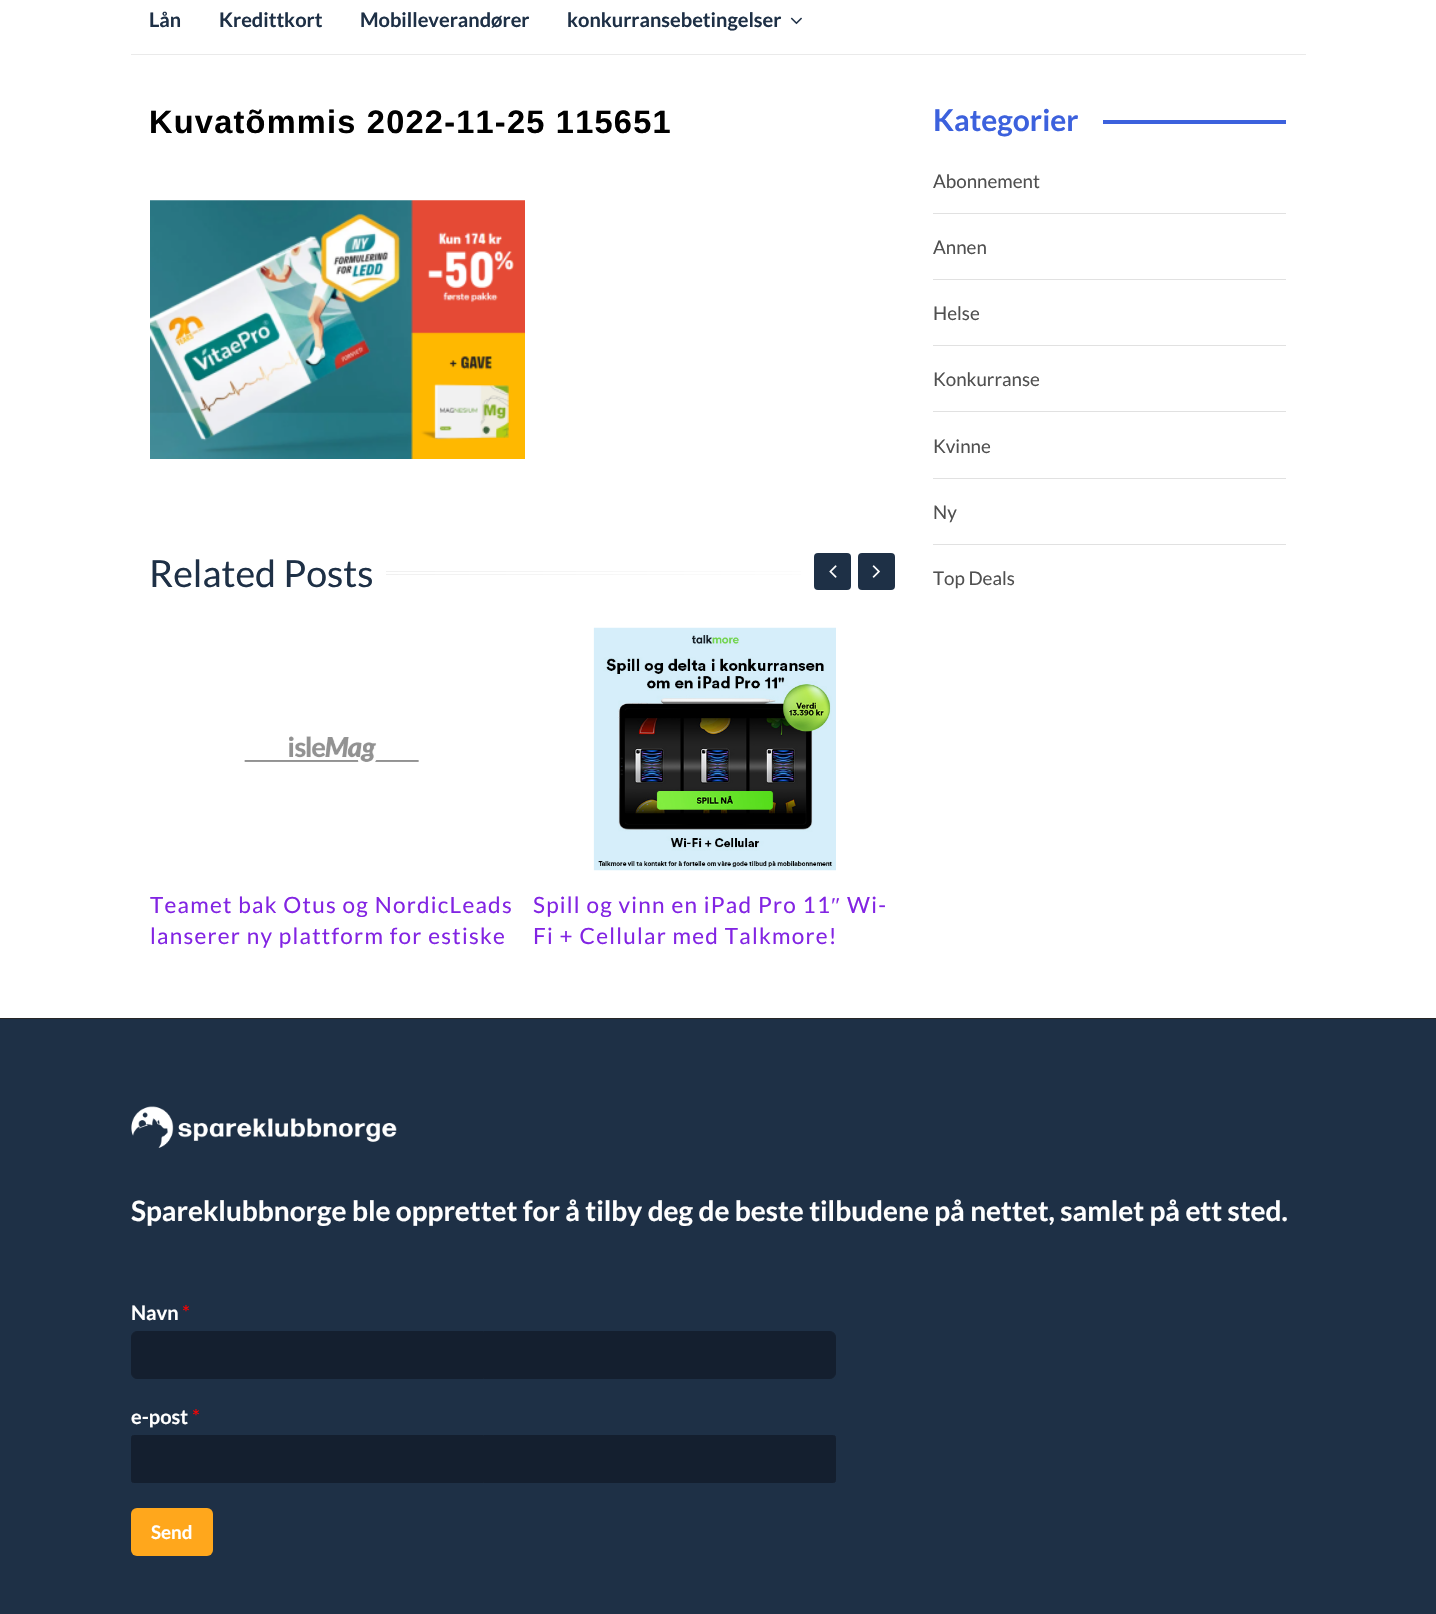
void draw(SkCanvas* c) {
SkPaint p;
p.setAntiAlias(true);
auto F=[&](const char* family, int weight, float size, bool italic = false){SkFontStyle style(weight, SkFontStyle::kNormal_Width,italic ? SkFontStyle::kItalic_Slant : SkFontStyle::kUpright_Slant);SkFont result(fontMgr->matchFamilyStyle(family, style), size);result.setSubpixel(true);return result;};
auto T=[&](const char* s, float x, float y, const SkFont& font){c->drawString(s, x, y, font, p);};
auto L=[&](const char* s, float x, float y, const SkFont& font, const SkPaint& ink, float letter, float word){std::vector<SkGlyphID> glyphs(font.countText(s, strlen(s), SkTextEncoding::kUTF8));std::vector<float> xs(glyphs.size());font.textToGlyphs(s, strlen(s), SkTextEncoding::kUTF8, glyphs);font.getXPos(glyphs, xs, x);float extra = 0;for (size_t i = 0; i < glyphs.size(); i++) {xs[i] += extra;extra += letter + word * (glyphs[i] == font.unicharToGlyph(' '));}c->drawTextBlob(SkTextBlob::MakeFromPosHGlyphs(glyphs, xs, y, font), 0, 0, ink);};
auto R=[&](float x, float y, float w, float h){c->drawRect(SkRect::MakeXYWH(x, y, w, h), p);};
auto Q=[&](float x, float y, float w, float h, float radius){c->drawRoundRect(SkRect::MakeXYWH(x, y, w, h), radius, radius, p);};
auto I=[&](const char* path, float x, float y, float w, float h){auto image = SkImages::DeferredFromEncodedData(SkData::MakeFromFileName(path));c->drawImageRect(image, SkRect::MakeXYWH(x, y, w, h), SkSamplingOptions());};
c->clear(0xffffffff);
p.setColor(0xffeaeaea);
R(131,54,1175,1);
auto f1 = F("Lato",700,20);
p.setColor(0xff1e3046);
T("Lån",149,27,f1);
T("Kredittkort",219,27,f1);
T("Mobilleverandører",360,27,f1);
T("konkurransebetingelser",567,27,f1);
I("1.png",790,17,12,8);
auto f2 = F("Liberation Sans",700,32.5);
p.setColor(0xff000000);
L("Kuvatõmmis 2022-11-25 115651",149,133,f2,p,1.25,0);
I("2.png",150,200,375,259);
auto f3 = F("Lato",400,37.5);
p.setColor(0xff1e3046);
T("Related Posts",149,587,f3);
p.setColor(0xffeaeaea);
R(386,571,415,1);
R(386,574,415,1);
{
const SkColor colors[] = {0x00ffffff,0xf2ffffff};
const float stops[] = {0,1};
const SkPoint ends[] = {{150,573}, {895,573}};
p.setShader(SkGradientShader::MakeLinear(ends, colors, stops, 2, SkTileMode::kClamp));
p.setAlpha(255);
}
R(386,571,415,4);
p.setShader(nullptr);
p.setColor(0xff1e3046);
Q(814,553,37,37,4);
I("3.png",829,565,8,13);
Q(858,553,37,37,4);
I("4.png",872,565,8,13);
I("5.png",244,736,175,26);
auto f4 = F("Lato",400,22.5);
p.setColor(0xff8224e3);
L("Teamet bak Otus og NordicLeads",150,913,f4,p,1.25,0);
L("lanserer ny plattform for estiske",150,944,f4,p,1.25,0);
I("6.png",593,627,243,244);
L("Spill og vinn en iPad Pro 11",533,913,f4,p,1.25,0);
auto f5 = F("Liberation Serif",400,22.5);
L("″",831,913,f5,p,1.25,0);
L("Wi-",847,913,f4,p,1.25,0);
L("Fi + Cellular med Talkmore!",533,944,f4,p,1.25,0);
auto f6 = F("Lato",700,30);
p.setColor(0xff3c61dd);
T("Kategorier",933,131,f6);
R(1103,120,183,4);
p.setColor(0xffe1e1e1);
R(933,213,353,1);
auto f7 = F("Lato",400,18.75);
p.setColor(0xff505050);
T("Abonnement",933,188,f7);
p.setColor(0xffe1e1e1);
R(933,279,353,1);
p.setColor(0xff505050);
T("Annen",933,254,f7);
p.setColor(0xffe1e1e1);
R(933,345,353,1);
p.setColor(0xff505050);
T("Helse",933,320,f7);
p.setColor(0xffe1e1e1);
R(933,411,353,1);
p.setColor(0xff505050);
T("Konkurranse",933,386,f7);
p.setColor(0xffe1e1e1);
R(933,478,353,1);
p.setColor(0xff505050);
T("Kvinne",933,453,f7);
p.setColor(0xffe1e1e1);
R(933,544,353,1);
p.setColor(0xff505050);
T("Ny",933,519,f7);
T("Top Deals",933,585,f7);
p.setColor(0xff262626);
R(0,1018,1436,1);
p.setColor(0xff1e3046);
R(0,1019,1436,595);
I("7.png",131,1106,266,42);
auto f8 = F("Lato",700,28);
p.setColor(0xffffffff);
T("Spareklubbnorge ble opprettet for å tilby deg de beste tilbudene på nettet, samlet på ett sted.",131,1221,f8);
T("Navn",131,1320,f1);
auto f9 = F("Lato",400,20);
p.setColor(0xffff0000);
T("*",182,1320,f9);
p.setColor(0xff141f2f);
c->drawRoundRect(SkRect::MakeXYWH(131.5,1331.5,704,47),5.5,5.5,p);
p.setStroke(true);
p.setStrokeWidth(1);
c->drawRoundRect(SkRect::MakeXYWH(131.5,1331.5,704,47),5.5,5.5,p);
p.setStroke(false);
p.setColor(0xffffffff);
T("e-post",131,1424,f1);
p.setColor(0xffff0000);
T("*",192,1424,f9);
p.setColor(0xff141f2f);
c->drawRoundRect(SkRect::MakeXYWH(131.5,1435.5,704,47),2,2,p);
p.setStroke(true);
c->drawRoundRect(SkRect::MakeXYWH(131.5,1435.5,704,47),2,2,p);
p.setStroke(false);
p.setColor(0xffffa71c);
Q(131,1508,82,48,6);
auto f10 = F("Lato",700,18.75);
p.setColor(0xffffffff);
T("Send",151,1539,f10);
}
